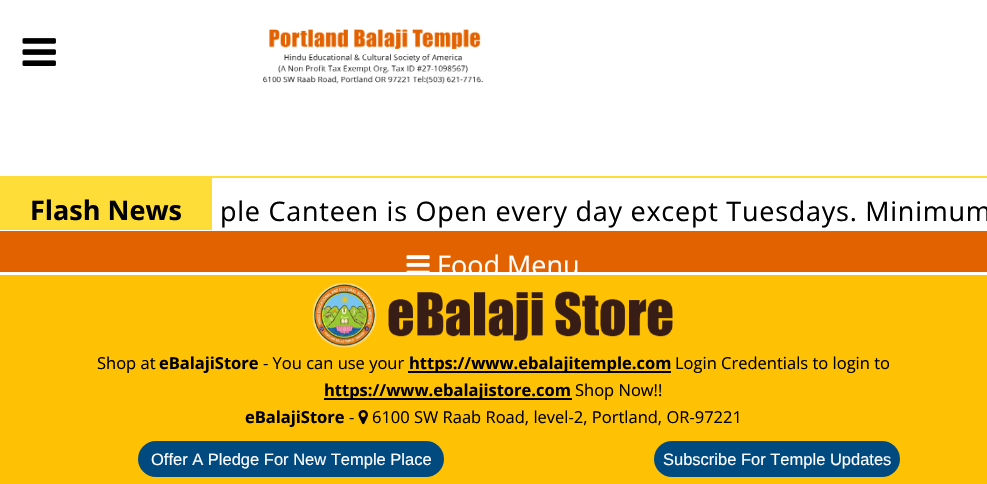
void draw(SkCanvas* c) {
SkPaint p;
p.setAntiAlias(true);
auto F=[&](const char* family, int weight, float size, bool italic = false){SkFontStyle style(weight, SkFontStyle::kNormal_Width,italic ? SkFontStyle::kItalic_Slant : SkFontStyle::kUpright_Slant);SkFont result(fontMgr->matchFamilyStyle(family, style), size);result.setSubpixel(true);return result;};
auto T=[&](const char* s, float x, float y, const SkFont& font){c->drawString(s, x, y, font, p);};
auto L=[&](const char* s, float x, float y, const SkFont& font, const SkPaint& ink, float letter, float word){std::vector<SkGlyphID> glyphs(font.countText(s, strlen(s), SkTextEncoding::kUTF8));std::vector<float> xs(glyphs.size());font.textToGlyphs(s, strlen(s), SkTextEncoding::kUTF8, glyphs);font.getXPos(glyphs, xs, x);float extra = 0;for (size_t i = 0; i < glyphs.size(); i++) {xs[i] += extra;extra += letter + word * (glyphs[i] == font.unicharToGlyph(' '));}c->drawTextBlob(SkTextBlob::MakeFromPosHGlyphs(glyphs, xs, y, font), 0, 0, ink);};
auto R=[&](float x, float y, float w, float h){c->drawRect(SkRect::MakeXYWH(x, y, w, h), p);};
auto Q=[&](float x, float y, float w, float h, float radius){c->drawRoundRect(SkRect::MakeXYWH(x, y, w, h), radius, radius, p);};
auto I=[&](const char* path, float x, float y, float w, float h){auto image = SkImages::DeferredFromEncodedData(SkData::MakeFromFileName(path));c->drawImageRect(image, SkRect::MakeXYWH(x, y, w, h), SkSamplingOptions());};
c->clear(0xffffffff);
I("1.png",22,38,34,28);
I("2.png",263,29,220,55);
p.setColor(0xffffdd38);
R(0,176,987,2);
R(0,178,212,52);
auto f1 = F("Open Sans",700,27);
p.setColor(0xff000000);
T("Flash News",30,220,f1);
auto f2 = F("Open Sans",400,27);
L("ple Canteen is Open every day except Tuesdays. Minimum",220,221,f2,p,.75,0);
p.setColor(0xffe36200);
R(0,231,987,41);
p.setColor(0xffffffff);
T("Food Menu",437,275,f2);
p.setColor(0xfffec103);
R(0,275,987,209);
I("3.png",312,282,361,66);
auto f3 = F("Open Sans",400,16.5);
p.setColor(0xff000000);
T("Shop at",97,369,f3);
auto f4 = F("Open Sans",700,16.5);
T("eBalajiStore",159,369,f4);
T("- You can use your",263,369,f3);
R(408,371,263,2);
T("https://www.ebalajitemple.com",409,369,f4);
T("Login Credentials to login to",675,369,f3);
R(324,398,248,2);
T("https://www.ebalajistore.com",324,396,f4);
T("Shop Now!!",575,396,f3);
T("eBalajiStore",245,423,f4);
T("-",349,423,f3);
I("4.png",358,410,10,15);
T("6100 SW Raab Road, level-2, Portland, OR-97221",372,423,f3);
p.setColor(0xff004a7f);
Q(138,441,306,36,18);
auto f5 = F("Liberation Sans",400,16.5);
p.setColor(0xffffffff);
T("Offer A Pledge For New Temple Place",151,465,f5);
p.setColor(0xff004a7f);
Q(654,441,246,36,18);
p.setColor(0xffffffff);
T("Subscribe For Temple Updates",663,465,f5);
I("5.png",406,255,24,17);
}
